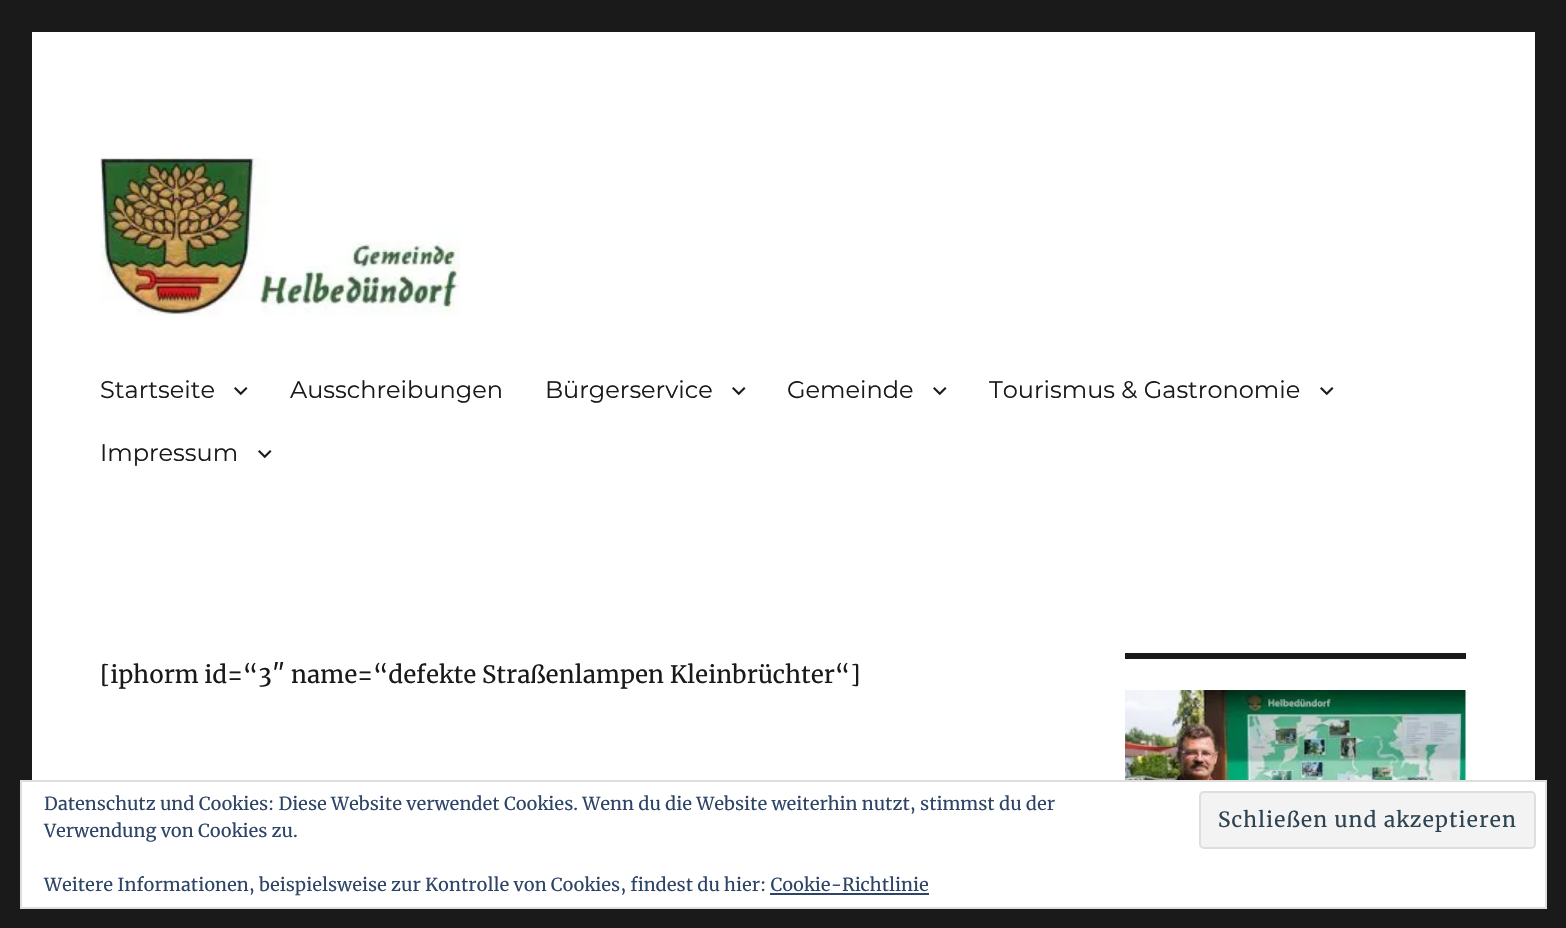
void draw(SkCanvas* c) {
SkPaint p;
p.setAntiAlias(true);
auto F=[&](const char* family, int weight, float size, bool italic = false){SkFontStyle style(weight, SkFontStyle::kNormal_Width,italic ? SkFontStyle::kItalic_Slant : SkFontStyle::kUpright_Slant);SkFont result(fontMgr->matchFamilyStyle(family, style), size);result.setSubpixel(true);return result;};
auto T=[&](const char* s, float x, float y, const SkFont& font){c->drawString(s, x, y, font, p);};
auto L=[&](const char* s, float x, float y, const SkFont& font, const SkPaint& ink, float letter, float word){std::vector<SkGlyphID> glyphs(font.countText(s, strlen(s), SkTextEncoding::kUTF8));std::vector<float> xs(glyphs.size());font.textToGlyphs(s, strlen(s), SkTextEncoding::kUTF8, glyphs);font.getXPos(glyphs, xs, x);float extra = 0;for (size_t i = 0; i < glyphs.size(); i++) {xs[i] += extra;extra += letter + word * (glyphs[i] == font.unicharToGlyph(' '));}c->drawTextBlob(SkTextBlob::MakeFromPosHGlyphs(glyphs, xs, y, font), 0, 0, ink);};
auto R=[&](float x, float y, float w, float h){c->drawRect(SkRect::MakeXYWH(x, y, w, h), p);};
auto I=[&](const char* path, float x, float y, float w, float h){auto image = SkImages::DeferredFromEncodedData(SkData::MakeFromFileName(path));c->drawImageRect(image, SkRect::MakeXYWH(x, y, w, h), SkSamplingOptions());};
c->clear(0xff1a1a1a);
p.setColor(0xffffffff);
R(32,32,1503,748);
I("1.png",100,157,360,159);
auto f1 = F("Montserrat",100,24);
p.setColor(0xff1a1a1a);
T("Startseite",100,398,f1);
I("2.png",234,387,14,9);
T("Ausschreibungen",290,398,f1);
T("Bürgerservice",545,398,f1);
I("2.png",732,387,14,9);
T("Gemeinde",787,398,f1);
I("2.png",933,387,14,9);
T("Tourismus & Gastronomie",989,398,f1);
I("2.png",1320,387,14,9);
T("Impressum",100,461,f1);
I("2.png",258,450,14,9);
auto f2 = F("Merriweather",400,24);
T("[iphorm id=“3″ name=“defekte Straßenlampen Kleinbrüchter“]",100,683,f2);
R(1125,653,341,6);
I("3.png",1125,690,341,90);
p.setColor(0xffffffff);
c->drawRect(SkRect::MakeXYWH(21,781,1525,127),p);
p.setStroke(true);
p.setStrokeWidth(2);
p.setColor(0xffdedede);
c->drawRect(SkRect::MakeXYWH(21,781,1525,127),p);
auto f3 = F("Merriweather",400,18);
p.setStroke(false);
p.setColor(0xff2e4467);
T("Datenschutz und Cookies: Diese Website verwendet Cookies. Wenn du die Website weiterhin nutzt, stimmst du der",44,810,f3);
T("Verwendung von Cookies zu.",44,837,f3);
p.setColor(0xfff3f3f3);
c->drawRoundRect(SkRect::MakeXYWH(1200,792,335,56),4,4,p);
p.setStroke(true);
p.setColor(0xffdedede);
c->drawRoundRect(SkRect::MakeXYWH(1200,792,335,56),4,4,p);
auto f4 = F("Merriweather",400,21);
p.setStroke(false);
p.setColor(0xff2e4453);
L("Schließen und akzeptieren",1218,827,f4,p,1,0);
p.setColor(0xff2e4467);
T("Weitere Informationen, beispielsweise zur Kontrolle von Cookies, findest du hier: Cookie-Richtlinie",44,891,f3);
R(770,893,159,2);
}
